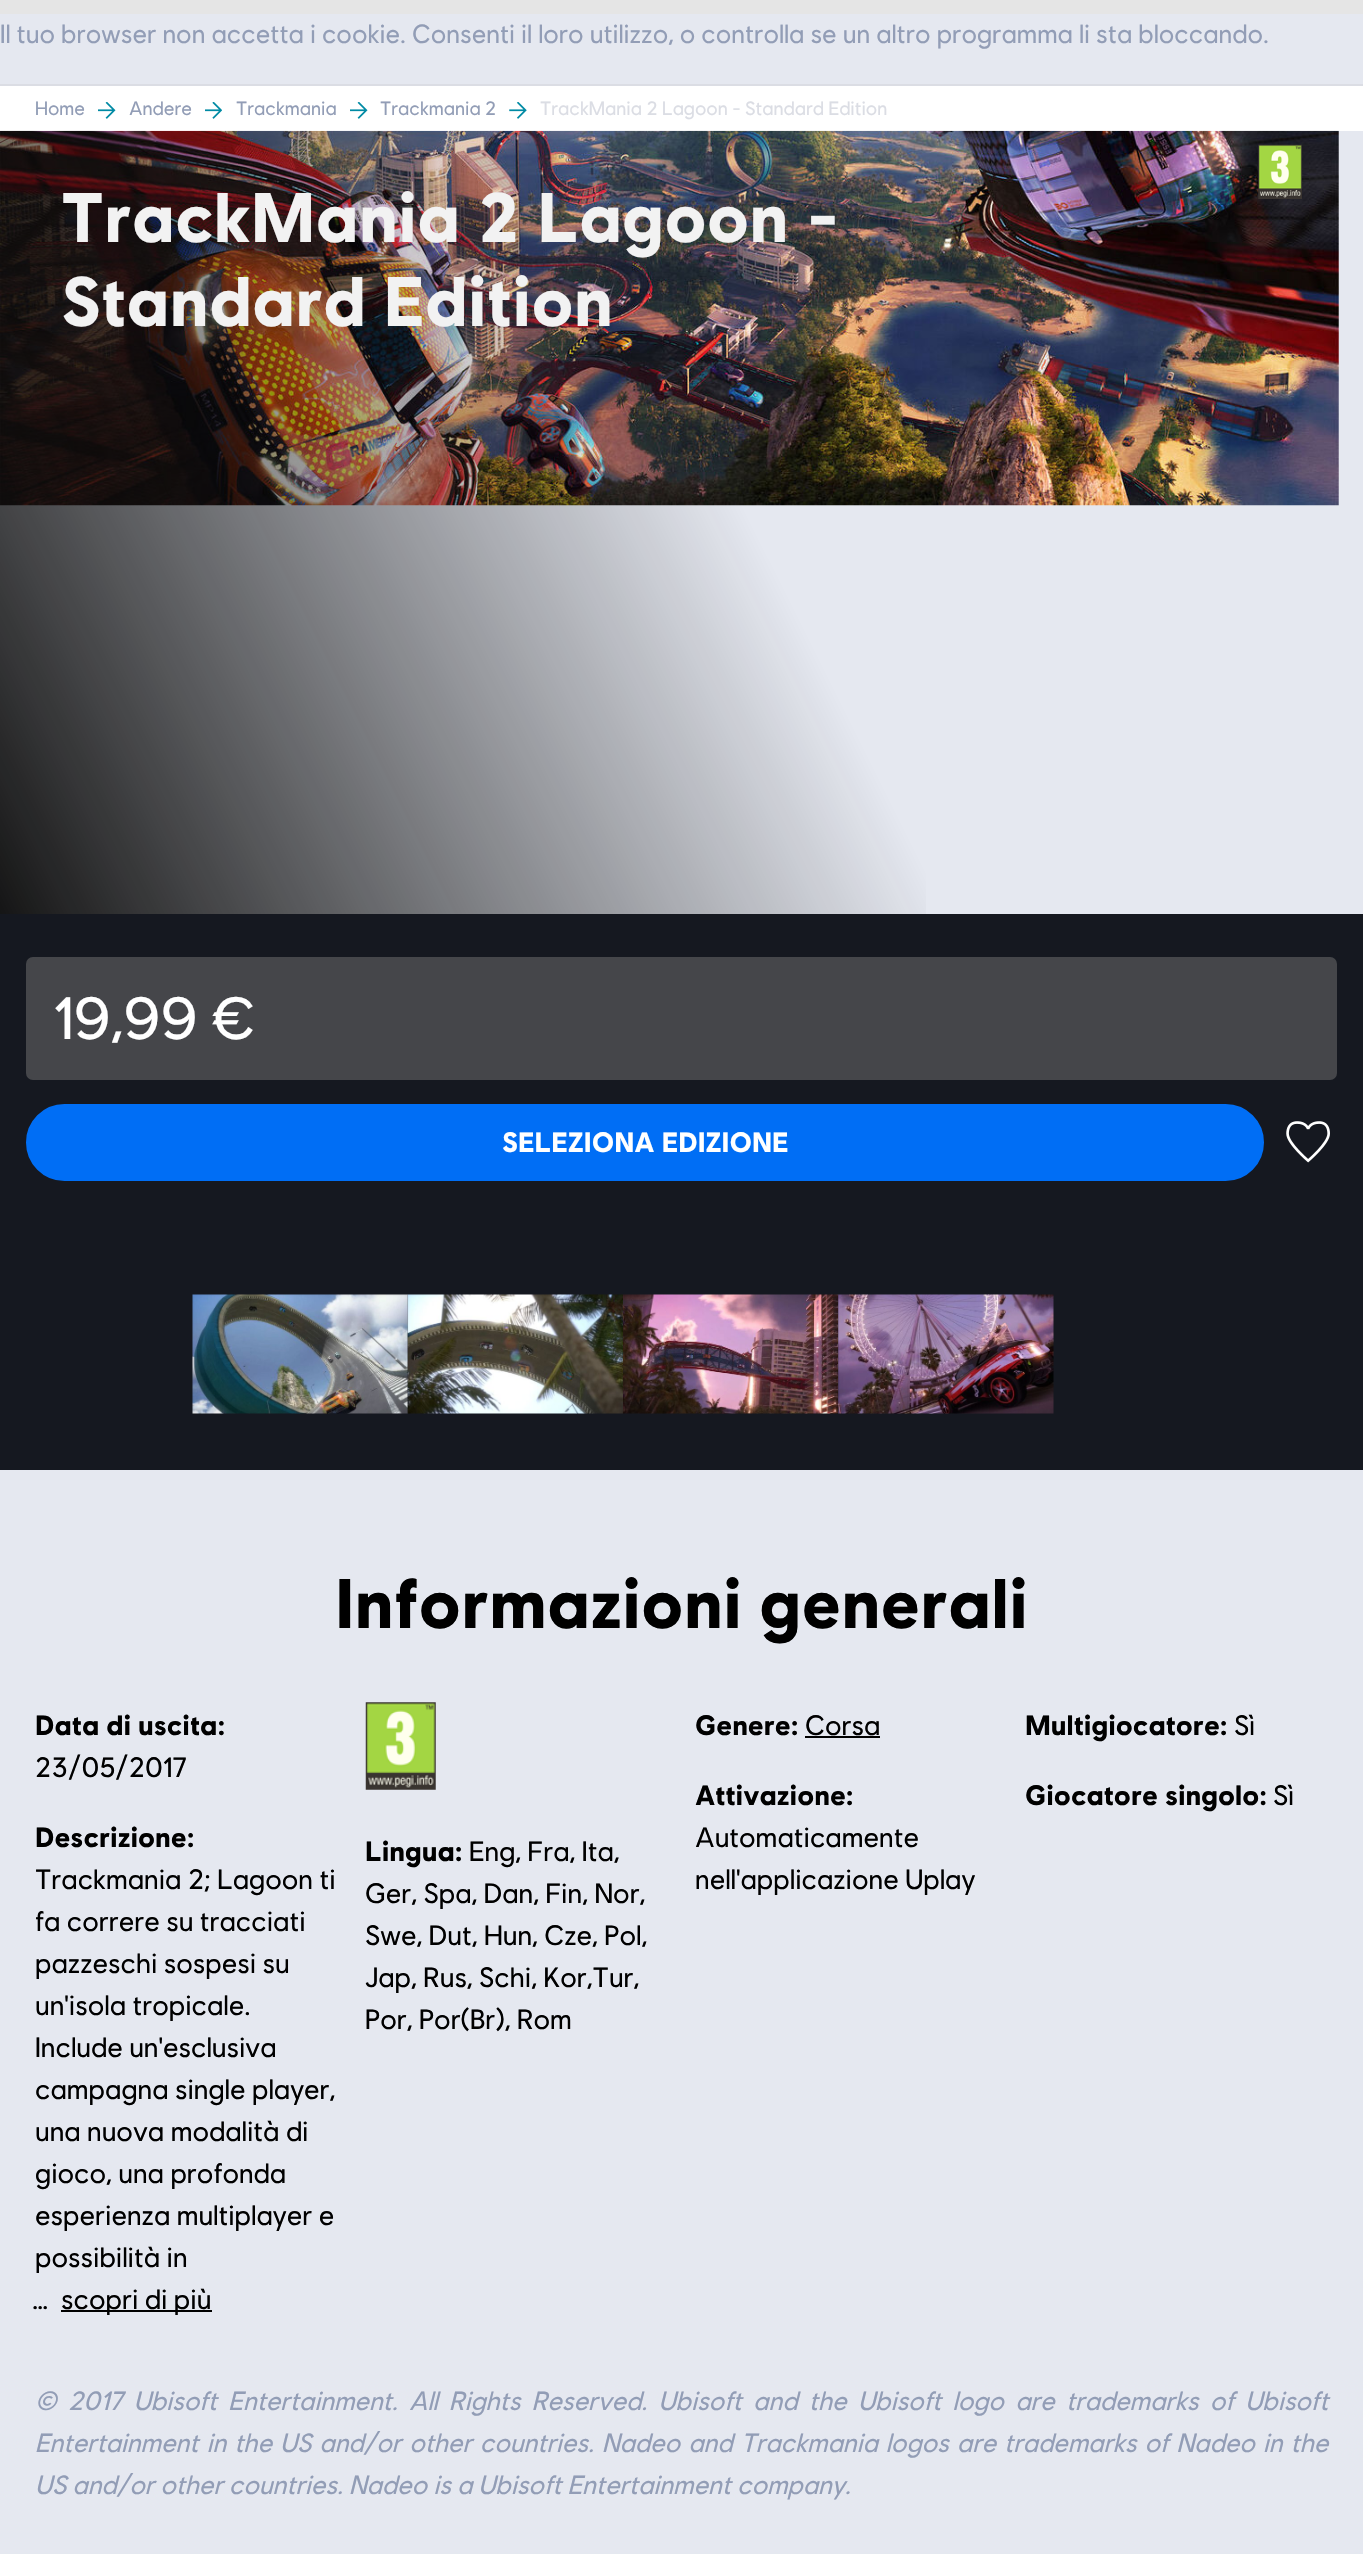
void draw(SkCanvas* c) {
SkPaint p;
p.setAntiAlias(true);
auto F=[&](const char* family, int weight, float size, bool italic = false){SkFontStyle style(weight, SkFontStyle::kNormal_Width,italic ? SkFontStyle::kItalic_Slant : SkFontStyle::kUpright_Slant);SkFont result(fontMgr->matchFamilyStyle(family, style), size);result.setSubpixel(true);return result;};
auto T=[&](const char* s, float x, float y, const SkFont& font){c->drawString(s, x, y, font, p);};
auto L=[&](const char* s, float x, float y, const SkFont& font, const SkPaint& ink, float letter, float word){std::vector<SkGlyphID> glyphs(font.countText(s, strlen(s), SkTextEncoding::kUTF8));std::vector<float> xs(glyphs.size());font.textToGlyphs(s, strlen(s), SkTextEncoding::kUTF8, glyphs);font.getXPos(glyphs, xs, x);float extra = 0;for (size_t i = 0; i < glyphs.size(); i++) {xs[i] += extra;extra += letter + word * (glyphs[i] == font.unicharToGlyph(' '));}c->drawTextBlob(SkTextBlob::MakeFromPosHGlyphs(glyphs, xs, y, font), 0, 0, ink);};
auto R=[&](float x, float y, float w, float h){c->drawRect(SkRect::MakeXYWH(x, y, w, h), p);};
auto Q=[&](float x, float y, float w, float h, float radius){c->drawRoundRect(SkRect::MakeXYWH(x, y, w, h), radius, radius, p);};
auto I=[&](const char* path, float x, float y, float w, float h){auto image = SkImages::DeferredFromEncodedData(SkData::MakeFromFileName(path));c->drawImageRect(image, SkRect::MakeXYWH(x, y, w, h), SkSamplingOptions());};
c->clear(0xffe5e8f0);
p.setColor(0xffe5e5e5);
R(0,0,1363,14);
auto f1 = F("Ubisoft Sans",400,26.25);
p.setColor(0xff929db6);
T("Il tuo browser non accetta i cookie. Consenti il loro utilizzo, o controlla se un altro programma li sta bloccando.",0,43,f1);
p.setColor(0xffffffff);
R(0,86,1363,45);
p.setColor(0xffdbdde4);
R(0,84,1363,2);
auto f2 = F("Ubisoft Sans",400,19.25);
p.setColor(0xff929db6);
T("Home",35,115,f2);
I("1.png",98,102,18,17);
T("Andere",129,115,f2);
I("2.png",205,102,17,17);
T("Trackmania",236,115,f2);
I("1.png",350,102,18,17);
T("Trackmania 2",380,115,f2);
I("3.png",509,102,18,17);
p.setColor(0xffdbdde4);
T("TrackMania 2 Lagoon - Standard Edition",540,115,f2);
I("4.png",0,130,1339,376);
{
const SkColor colors[] = {0x000d0d0d,0xf50d0d0d};
const float stops[] = {.46,1};
const SkPoint ends[] = {{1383,171}, {-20,873}};
p.setShader(SkGradientShader::MakeLinear(ends, colors, stops, 2, SkTileMode::kClamp));
p.setAlpha(255);
}
R(0,131,926,783);
I("5.png",1258,144,44,55);
auto f3 = F("Ubisoft Sans",700,70);
p.setShader(nullptr);
p.setColor(0xfff2f2f2);
T("TrackMania 2 Lagoon -",61,242,f3);
T("Standard Edition",61,326,f3);
p.setColor(0xff151820);
R(0,914,1363,556);
p.setColor(0xff45464a);
Q(26,957,1311,123,7);
auto f4 = F("Ubisoft Sans",400,59.5);
p.setColor(0xffffffff);
T("19,99 €",53,1039,f4);
p.setColor(0xff006ef5);
c->drawRoundRect(SkRect::MakeXYWH(28,1106,1234,73),36.5,36.5,p);
p.setStroke(true);
p.setStrokeWidth(4);
c->drawRoundRect(SkRect::MakeXYWH(28,1106,1234,73),36.5,36.5,p);
auto f5 = F("Ubisoft Sans",700,28);
p.setStroke(false);
p.setColor(0xffffffff);
T("SELEZIONA EDIZIONE",502,1152,f5);
I("6.png",1286,1121,44,42);
I("7.png",192,1294,216,120);
I("8.png",407,1294,216,120);
I("9.png",623,1294,216,120);
I("10.png",838,1294,216,120);
p.setColor(0xff000000);
T("Informazioni generali",335,1628,f3);
T("Data di uscita:",35,1735,f5);
auto f6 = F("Ubisoft Sans",400,28);
T("23/05/2017",35,1777,f6);
T("Descrizione:",35,1847,f5);
T("Trackmania 2; Lagoon ti",35,1889,f6);
T("fa correre su tracciati",35,1931,f6);
T("pazzeschi sospesi su",35,1973,f6);
T("un'isola tropicale.",35,2015,f6);
T("Include un'esclusiva",35,2057,f6);
T("campagna single player,",35,2099,f6);
T("una nuova modalità di",35,2141,f6);
T("gioco, una profonda",35,2183,f6);
T("esperienza multiplayer e",35,2225,f6);
T("possibilità in",35,2267,f6);
T("…",32,2309,f6);
R(61,2310,151,2);
T("scopri di più",61,2309,f6);
T("Genere:",695,1735,f5);
T("Corsa",805,1735,f6);
R(805,1736,75,2);
T("Attivazione:",695,1805,f5);
T("Automaticamente",695,1847,f6);
T("nell'applicazione Uplay",695,1889,f6);
T("Multigiocatore:",1025,1735,f5);
T("Sì",1234,1735,f6);
T("Giocatore singolo:",1025,1805,f5);
T("Sì",1273,1805,f6);
I("11.png",365,1702,71,88);
T("Lingua:",365,1861,f5);
T("Eng, Fra, Ita,",469,1861,f6);
T("Ger, Spa, Dan, Fin, Nor,",365,1903,f6);
T("Swe, Dut, Hun, Cze, Pol,",365,1945,f6);
T("Jap, Rus, Schi, Kor,Tur,",365,1987,f6);
T("Por, Por(Br), Rom",365,2029,f6);
auto f7 = F("Ubisoft Sans",400,26.25,true);
p.setColor(0xff929db6);
L("© 2017 Ubisoft Entertainment. All Rights Reserved. Ubisoft and the Ubisoft logo are trademarks of Ubisoft",35,2410,f7,p,0,5.4);
L("Entertainment in the US and/or other countries. Nadeo and Trackmania logos are trademarks of Nadeo in the",35,2452,f7,p,0,2);
T("US and/or other countries. Nadeo is a Ubisoft Entertainment company.",35,2494,f7);
}
